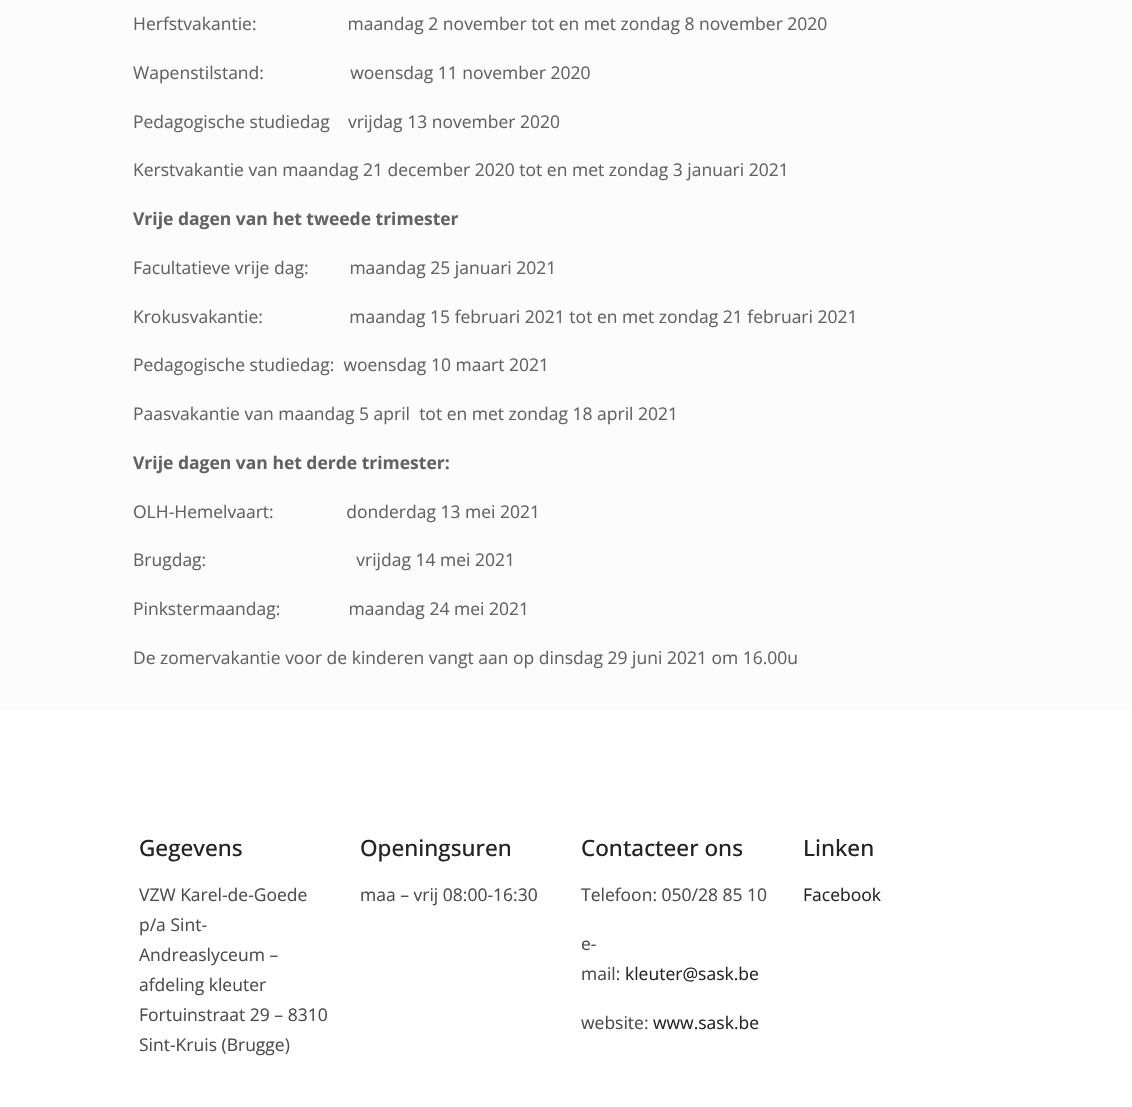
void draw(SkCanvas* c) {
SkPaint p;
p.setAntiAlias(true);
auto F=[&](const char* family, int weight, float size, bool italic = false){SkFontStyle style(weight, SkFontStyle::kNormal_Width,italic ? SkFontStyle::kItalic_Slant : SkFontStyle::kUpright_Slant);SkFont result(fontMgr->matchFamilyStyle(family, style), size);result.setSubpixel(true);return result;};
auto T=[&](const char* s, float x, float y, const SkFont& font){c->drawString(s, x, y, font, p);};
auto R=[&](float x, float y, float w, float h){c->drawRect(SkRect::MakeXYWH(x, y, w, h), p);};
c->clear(0xfffcfcfc);
auto f1 = F("Open Sans",400,17.5);
p.setColor(0xff626262);
T("Herfstvakantie:                    maandag 2 november tot en met zondag 8 november 2020",133,30,f1);
T("Wapenstilstand:                   woensdag 11 november 2020",133,79,f1);
T("Pedagogische studiedag    vrijdag 13 november 2020",133,128,f1);
T("Kerstvakantie van maandag 21 december 2020 tot en met zondag 3 januari 2021",133,176,f1);
auto f2 = F("Open Sans",700,17.5);
T("Vrije dagen van het tweede trimester",133,225,f2);
T("Facultatieve vrije dag:         maandag 25 januari 2021",133,274,f1);
T("Krokusvakantie:                   maandag 15 februari 2021 tot en met zondag 21 februari 2021",133,323,f1);
T("Pedagogische studiedag:  woensdag 10 maart 2021",133,371,f1);
T("Paasvakantie van maandag 5 april  tot en met zondag 18 april 2021",133,420,f1);
T("Vrije dagen van het derde trimester:",133,469,f2);
T("OLH-Hemelvaart:                donderdag 13 mei 2021",133,518,f1);
T("Brugdag:                                 vrijdag 14 mei 2021",133,566,f1);
T("Pinkstermaandag:               maandag 24 mei 2021",133,615,f1);
T("De zomervakantie voor de kinderen vangt aan op dinsdag 29 juni 2021 om 16.00u",133,664,f1);
p.setColor(0xffffffff);
R(0,710,1132,397);
auto f3 = F("Open Sans",500,22.5);
p.setColor(0xff242424);
T("Gegevens",139,856,f3);
p.setColor(0xff4b4b4b);
T("VZW Karel-de-Goede",139,901,f1);
T("p/a Sint-",139,931,f1);
T("Andreaslyceum –",139,961,f1);
T("afdeling kleuter",139,991,f1);
T("Fortuinstraat 29 – 8310",139,1021,f1);
T("Sint-Kruis (Brugge)",139,1051,f1);
p.setColor(0xff242424);
T("Openingsuren",360,856,f3);
p.setColor(0xff4b4b4b);
T("maa – vrij 08:00-16:30",360,901,f1);
p.setColor(0xff242424);
T("Contacteer ons",581,856,f3);
p.setColor(0xff4b4b4b);
T("Telefoon: 050/28 85 10",581,901,f1);
T("e-",581,950,f1);
T("mail:",581,980,f1);
p.setColor(0xff242424);
T("kleuter@sask.be",625,980,f1);
p.setColor(0xff4b4b4b);
T("website:",581,1029,f1);
p.setColor(0xff242424);
T("www.sask.be",653,1029,f1);
T("Linken",803,856,f3);
T("Facebook",803,901,f1);
}
